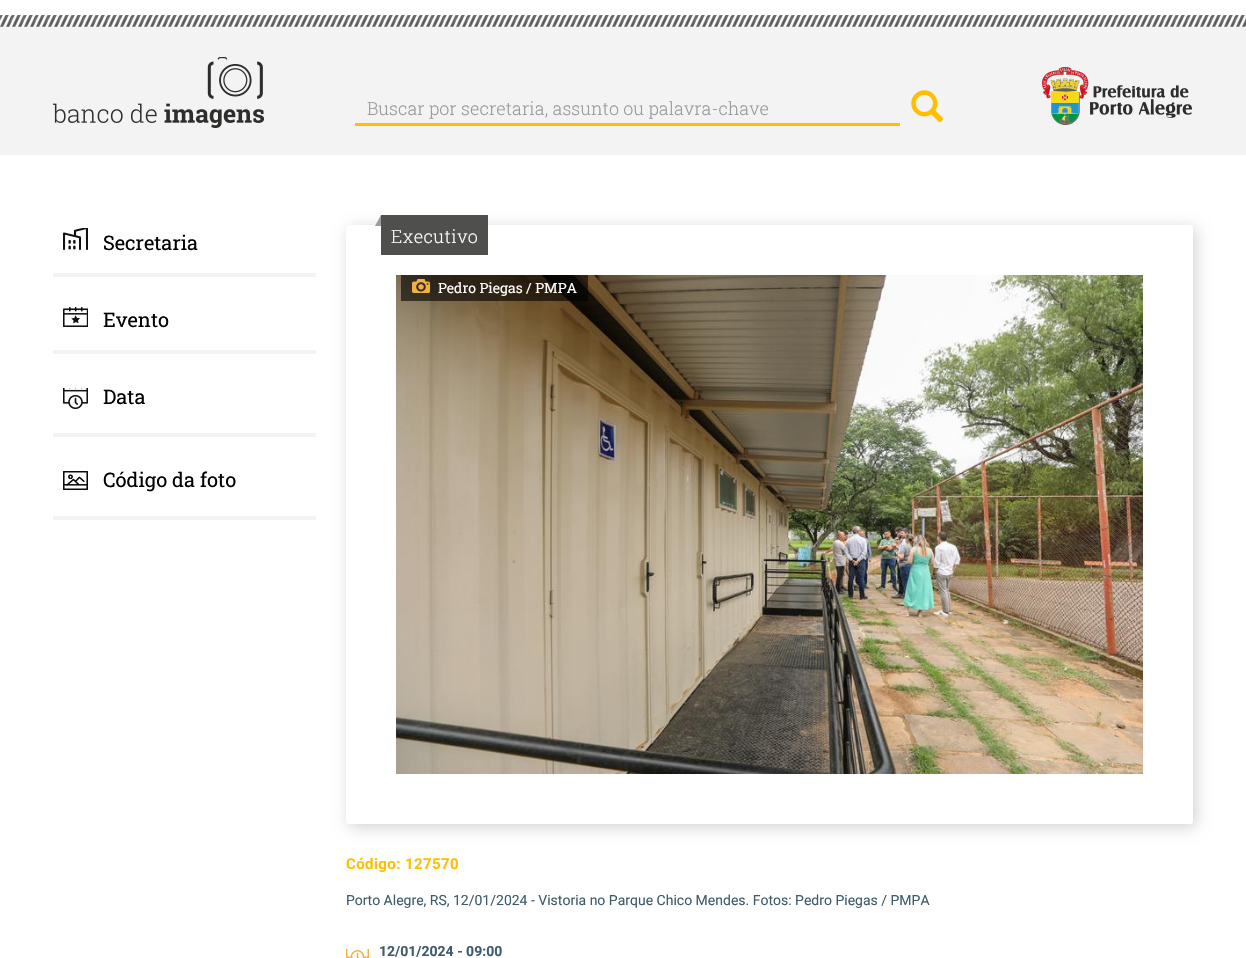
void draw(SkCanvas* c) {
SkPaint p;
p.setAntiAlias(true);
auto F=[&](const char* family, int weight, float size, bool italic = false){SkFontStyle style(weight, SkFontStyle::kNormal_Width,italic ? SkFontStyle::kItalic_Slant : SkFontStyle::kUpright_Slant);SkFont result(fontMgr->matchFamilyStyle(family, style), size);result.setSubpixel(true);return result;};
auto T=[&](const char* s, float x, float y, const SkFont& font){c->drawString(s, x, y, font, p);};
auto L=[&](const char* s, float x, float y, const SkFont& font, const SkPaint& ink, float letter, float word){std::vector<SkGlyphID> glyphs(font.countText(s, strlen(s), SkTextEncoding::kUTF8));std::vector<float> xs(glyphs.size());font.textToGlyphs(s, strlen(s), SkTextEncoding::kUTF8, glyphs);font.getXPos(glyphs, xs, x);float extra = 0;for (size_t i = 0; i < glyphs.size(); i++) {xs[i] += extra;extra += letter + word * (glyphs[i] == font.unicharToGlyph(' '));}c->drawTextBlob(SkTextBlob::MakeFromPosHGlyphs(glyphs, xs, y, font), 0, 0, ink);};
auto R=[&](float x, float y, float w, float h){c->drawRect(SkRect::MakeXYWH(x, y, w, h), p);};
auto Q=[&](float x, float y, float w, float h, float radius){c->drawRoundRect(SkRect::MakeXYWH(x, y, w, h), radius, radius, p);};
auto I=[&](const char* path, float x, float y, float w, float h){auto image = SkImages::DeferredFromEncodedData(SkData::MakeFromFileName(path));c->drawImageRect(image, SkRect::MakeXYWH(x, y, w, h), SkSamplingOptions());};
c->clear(0xffffffff);
p.setColor(0xfff3f3f3);
R(0,15,1246,140);
I("1.png",0,15,1246,12);
I("2.png",53,57,211,71);
p.setColor(0xffffbf00);
R(355,123,545,3);
auto f1 = F("Roboto Slab",300,18);
p.setColor(0xff999999);
T("Buscar por secretaria, assunto ou palavra-chave",367,115,f1);
I("3.png",911,90,33,33);
I("4.png",1042,67,150,58);
p.setColor(0xfff3f3f3);
R(53,273,263,4);
I("5.png",63,228,25,22);
auto f2 = F("Roboto Slab",400,20);
p.setColor(0xff000000);
T("Secretaria",103,250,f2);
p.setColor(0xfff3f3f3);
R(53,350,263,4);
I("6.png",63,307,25,20);
p.setColor(0xff000000);
T("Evento",103,327,f2);
p.setColor(0xfff3f3f3);
R(53,433,263,4);
I("7.png",63,388,25,21);
p.setColor(0xff000000);
T("Data",103,404,f2);
p.setColor(0xfff3f3f3);
R(53,516,263,4);
I("8.png",63,471,25,19);
p.setColor(0xff000000);
T("Código da foto",103,487,f2);
p.setColor(0xffd1d1d1);
p.setMaskFilter(SkMaskFilter::MakeBlur(kNormal_SkBlurStyle, 7.5));
c->drawRoundRect(SkRect::MakeXYWH(349,228,847,599),3,3,p);
p.setMaskFilter(nullptr);
p.setColor(0xffffffff);
Q(346,225,847,599,3);
I("9.png",396,275,747,499);
p.setColor(0xff4f4f4e);
R(381,215,107,40);
I("10.png",375,215,6,11);
p.setColor(0xffffffff);
L("Executivo",391,243,f1,p,.4,0);
p.setColor(0x99000000);
R(401,275,187,26);
I("11.png",412,279,18,14);
auto f3 = F("Roboto Slab",400,14);
p.setColor(0xffffffff);
T("Pedro Piegas / PMPA",438,293,f3);
auto f4 = F("Roboto",700,15);
p.setColor(0xffffbf00);
L("Código: 127570",346,869,f4,p,.4,0);
auto f5 = F("Roboto",400,14);
p.setColor(0xff3f5b70);
T("Porto Alegre, RS, 12/01/2024 - Vistoria no Parque Chico Mendes. Fotos: Pedro Piegas / PMPA",346,905,f5);
I("12.png",346,949,23,9);
auto f6 = F("Roboto",700,14);
T("12/01/2024 - 09:00",379,956,f6);
}
